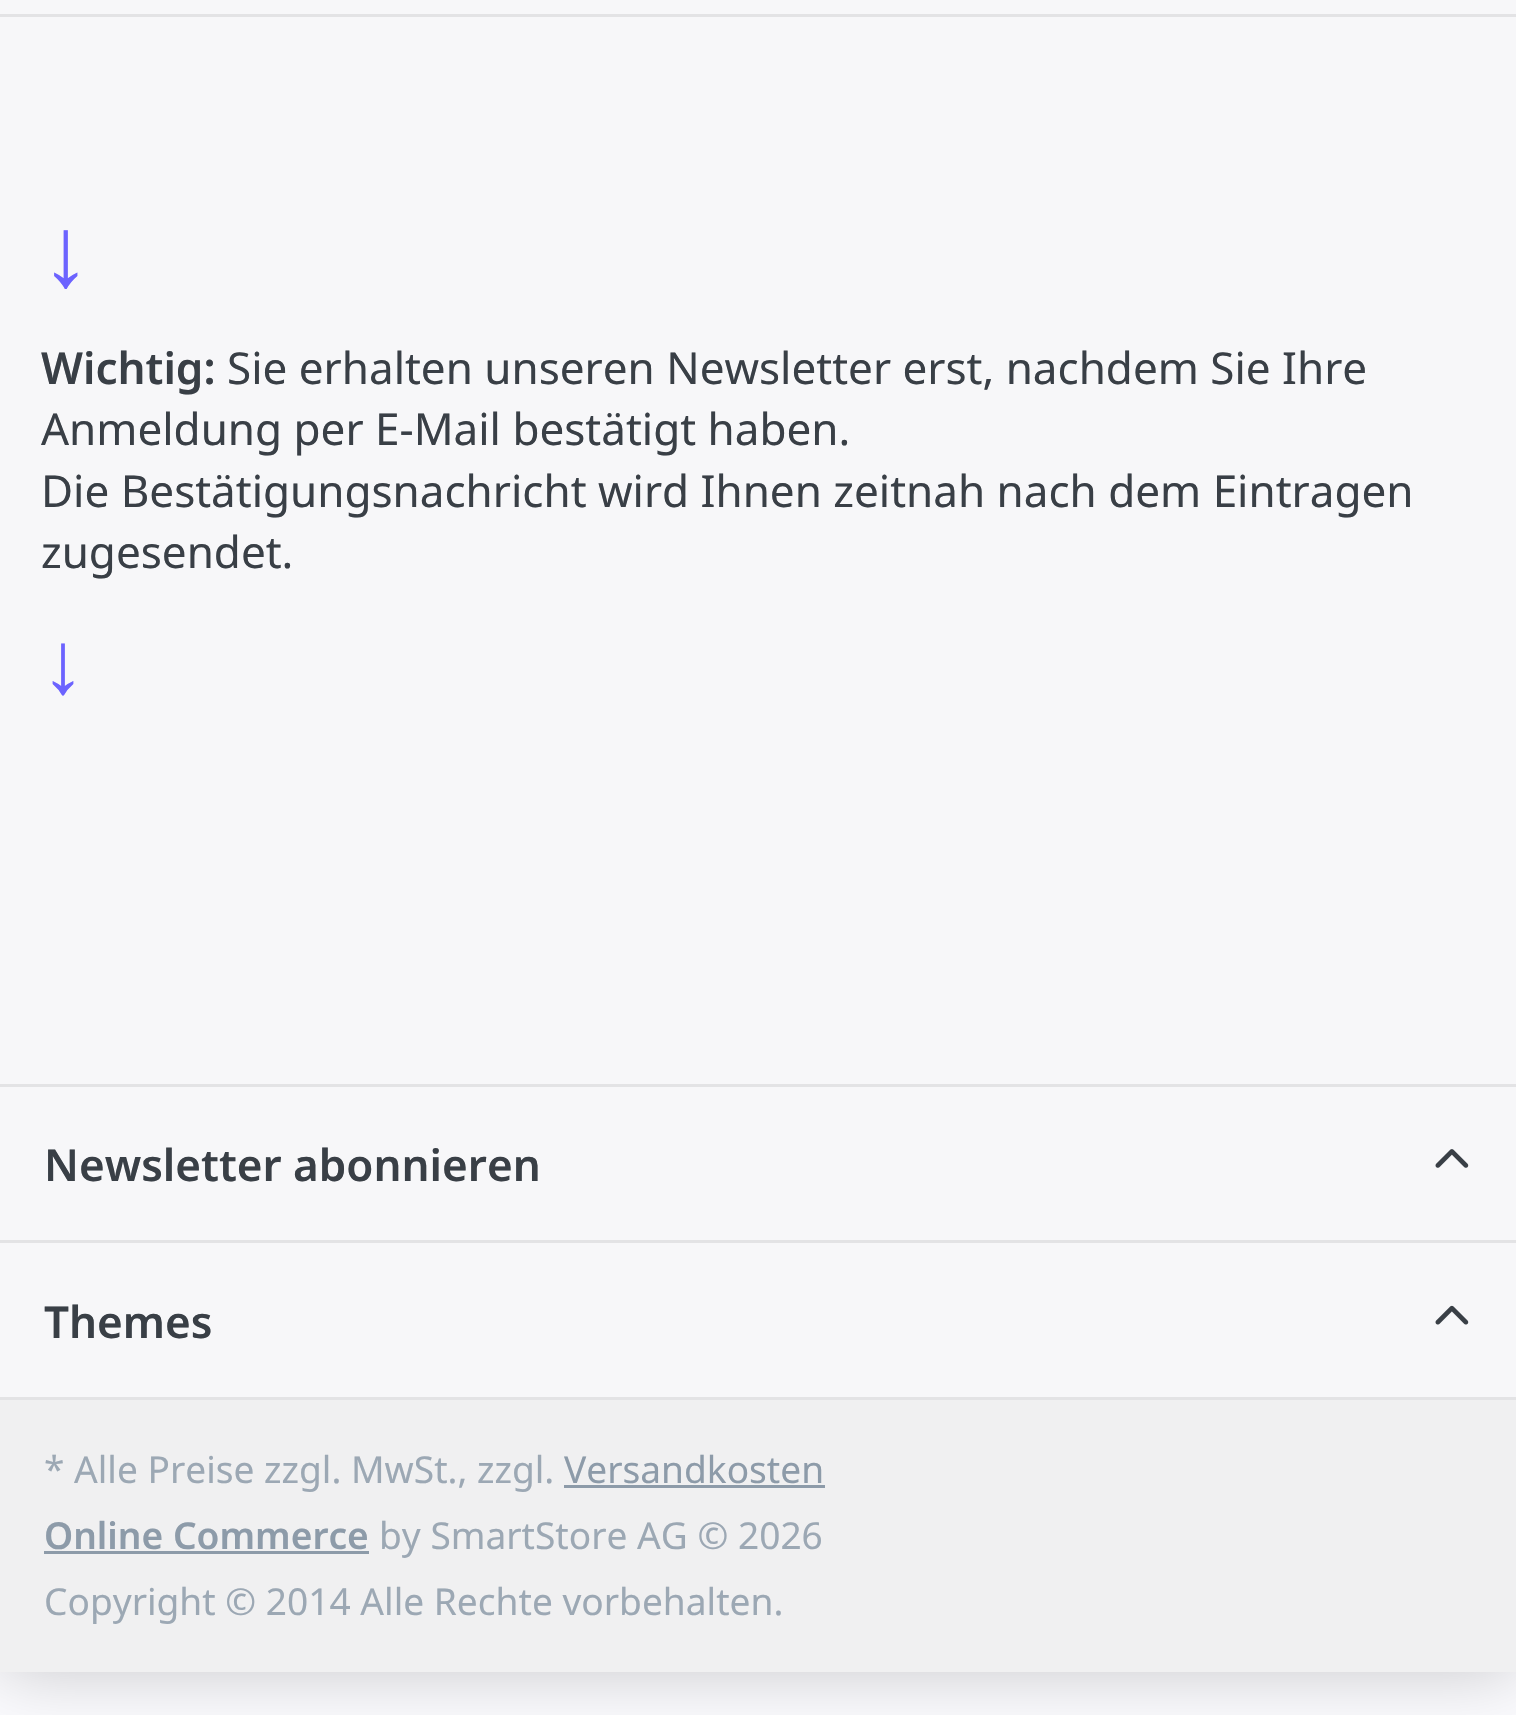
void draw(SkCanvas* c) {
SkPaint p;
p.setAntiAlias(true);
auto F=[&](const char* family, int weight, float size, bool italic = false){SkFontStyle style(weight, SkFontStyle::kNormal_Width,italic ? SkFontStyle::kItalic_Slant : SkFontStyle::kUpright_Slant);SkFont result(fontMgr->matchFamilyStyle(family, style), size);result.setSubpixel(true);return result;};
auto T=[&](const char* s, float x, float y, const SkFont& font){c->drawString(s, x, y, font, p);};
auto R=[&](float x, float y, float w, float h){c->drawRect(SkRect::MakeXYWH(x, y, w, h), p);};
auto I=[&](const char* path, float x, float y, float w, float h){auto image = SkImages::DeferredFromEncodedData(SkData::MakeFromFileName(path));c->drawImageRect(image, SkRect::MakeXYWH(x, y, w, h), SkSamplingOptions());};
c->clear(0xfffbfbfe);
p.setColor(0x33000000);
p.setMaskFilter(SkMaskFilter::MakeBlur(kNormal_SkBlurStyle, 33));
c->drawRect(SkRect::MakeXYWH(0,-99,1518,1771),p);
p.setMaskFilter(nullptr);
p.setColor(0xfff7f7f9);
R(0,0,1516,1397);
p.setColor(0xffe3e3e5);
R(0,14,1516,3);
auto f1 = F("Liberation Sans",400,99);
p.setColor(0xff6c63ff);
T("↓",41,286,f1);
auto f2 = F("Noto Sans",600,44);
p.setColor(0xff393f46);
T("Wichtig:",41,384,f2);
auto f3 = F("Noto Sans",400,44);
T("Sie erhalten unseren Newsletter erst, nachdem Sie Ihre",227,384,f3);
T("Anmeldung per E-Mail bestätigt haben.",41,445,f3);
T("Die Bestätigungsnachricht wird Ihnen zeitnah nach dem Eintragen",41,507,f3);
T("zugesendet.",41,568,f3);
auto f4 = F("Liberation Sans",400,88);
p.setColor(0xff6c63ff);
T("↓",41,693,f4);
p.setColor(0xffe3e3e5);
R(0,1084,1516,3);
R(0,1240,1516,3);
p.setColor(0xff393f46);
T("Newsletter abonnieren",44,1181,f2);
I("1.png",1435,1149,34,19);
p.setColor(0xffe3e3e5);
R(0,1397,1516,3);
p.setColor(0xff393f46);
T("Themes",44,1338,f2);
I("2.png",1435,1305,34,20);
p.setColor(0xfff0f0f1);
R(0,1400,1516,272);
auto f5 = F("Noto Sans",400,37.1);
p.setColor(0xff9ca8b4);
T("* Alle Preise zzgl. MwSt., zzgl.",44,1483,f5);
p.setColor(0xff8d9ba9);
T("Versandkosten",564,1483,f5);
R(564,1485,261,3);
auto f6 = F("Noto Sans",600,37.1);
T("Online Commerce",44,1549,f6);
R(44,1551,325,3);
p.setColor(0xff9ca8b4);
T("by SmartStore AG © 2026",379,1549,f5);
T("Copyright © 2014 Alle Rechte vorbehalten.",44,1615,f5);
}
